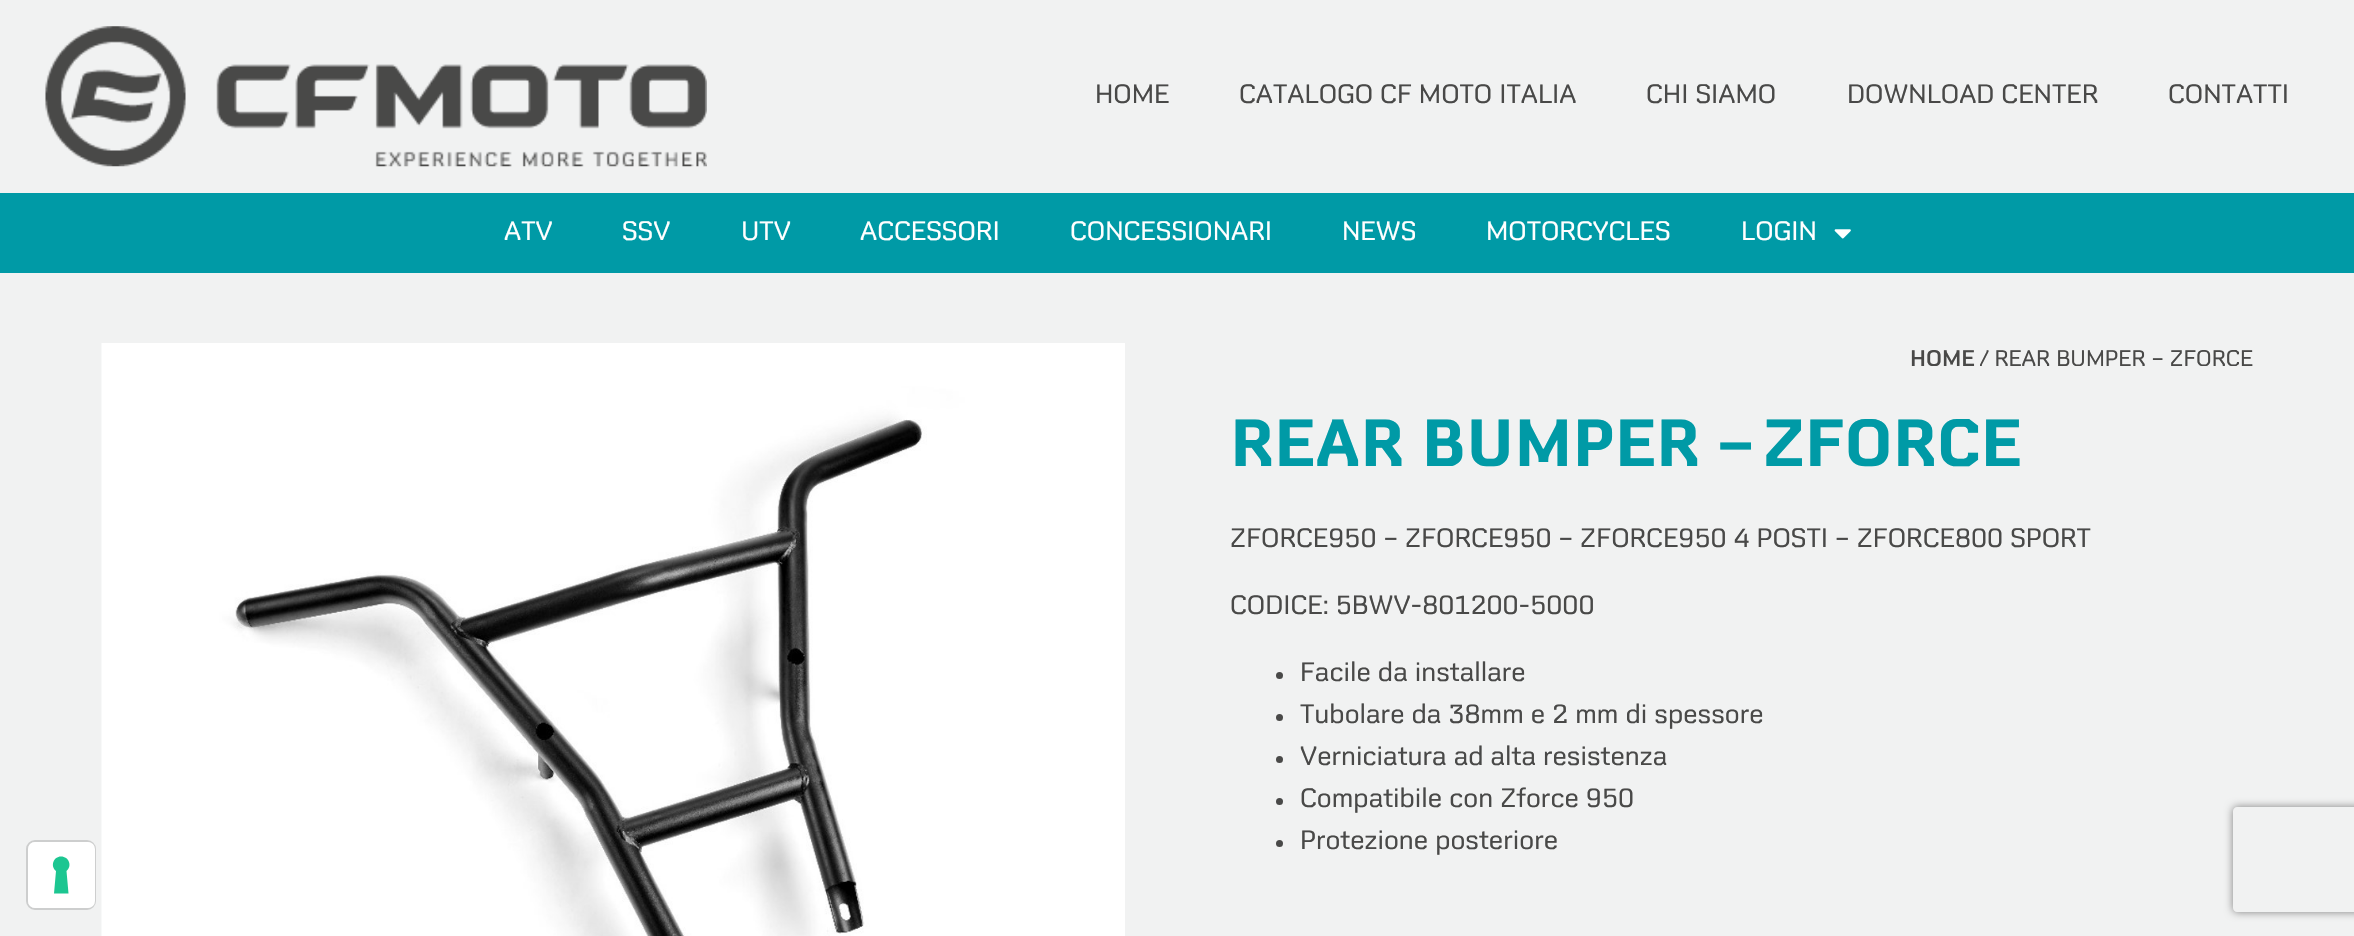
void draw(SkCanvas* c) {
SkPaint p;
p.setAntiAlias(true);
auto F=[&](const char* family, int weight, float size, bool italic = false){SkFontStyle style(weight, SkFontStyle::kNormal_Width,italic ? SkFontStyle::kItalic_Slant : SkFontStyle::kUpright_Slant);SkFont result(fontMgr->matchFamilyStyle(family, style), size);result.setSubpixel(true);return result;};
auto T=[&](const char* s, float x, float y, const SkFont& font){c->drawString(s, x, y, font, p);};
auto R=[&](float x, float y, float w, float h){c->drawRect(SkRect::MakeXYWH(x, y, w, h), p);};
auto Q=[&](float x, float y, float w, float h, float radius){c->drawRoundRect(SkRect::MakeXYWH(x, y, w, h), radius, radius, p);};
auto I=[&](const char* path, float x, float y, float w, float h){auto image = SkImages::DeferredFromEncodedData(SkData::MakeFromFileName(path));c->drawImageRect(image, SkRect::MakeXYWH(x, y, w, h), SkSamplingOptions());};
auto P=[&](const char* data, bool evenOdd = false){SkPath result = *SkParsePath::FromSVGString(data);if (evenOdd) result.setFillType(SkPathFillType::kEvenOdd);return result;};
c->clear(0xfff1f2f2);
I("1.png",45,26,662,141);
auto f1 = F("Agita",400,28);
p.setColor(0xff494948);
T("HOME",1095,103,f1);
T("CATALOGO CF MOTO ITALIA",1239,103,f1);
T("CHI SIAMO",1646,103,f1);
T("DOWNLOAD CENTER",1847,103,f1);
T("CONTATTI",2168,103,f1);
p.setColor(0xff009aa6);
R(0,193,2354,80);
p.setColor(0xffffffff);
T("ATV",504,240,f1);
T("SSV",622,240,f1);
T("UTV",741,240,f1);
T("ACCESSORI",860,240,f1);
T("CONCESSIONARI",1070,240,f1);
T("NEWS",1342,240,f1);
T("MOTORCYCLES",1486,240,f1);
T("LOGIN",1741,240,f1);
I("2.png",1834,229,17,10);
p.setStroke(true);
p.setStrokeWidth(2);
p.setColor(0xffcdcece);
c->drawRoundRect(SkRect::MakeXYWH(27,841,68,68),8,8,p);
p.setStroke(false);
p.setColor(0xffffffff);
Q(28,842,67,66,7);
p.setColor(0xff1cc691);
c->drawPath(P("M61 856.5c8 0 11.5 9.5 5.5 14.5l2 22.5h-14.5l2-22.5c-6-5-2.5-14.5 5-14.5z",true),p);
I("3.png",101,343,1024,593);
auto f2 = F("Agita",600,23.75);
p.setColor(0xff494948);
T("HOME",1910,366,f2);
auto f3 = F("Agita",400,23.75);
T("/ REAR BUMPER – ZFORCE",1980,366,f3);
auto f4 = F("Agita",700,70);
p.setColor(0xff009aa6);
T("REAR BUMPER – ZFORCE",1230,466,f4);
p.setColor(0xff494948);
T("ZFORCE950 – ZFORCE950 – ZFORCE950 4 POSTI – ZFORCE800 SPORT",1230,547,f1);
T("CODICE: 5BWV-801200-5000",1230,614,f1);
c->drawCircle(1279.5,675.5,3.5,p);
T("Facile da installare",1300,681,f1);
c->drawCircle(1279.5,717.5,3.5,p);
T("Tubolare da 38mm e 2 mm di spessore",1300,723,f1);
c->drawCircle(1279.5,759.5,3.5,p);
T("Verniciatura ad alta resistenza",1300,765,f1);
c->drawCircle(1279.5,801.5,3.5,p);
T("Compatibile con Zforce 950",1300,807,f1);
c->drawCircle(1279.5,843.5,3.5,p);
T("Protezione posteriore",1300,849,f1);
c->save();
c->clipPath(P("M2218 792h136v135h-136zm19 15h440c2 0 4 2 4 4v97c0 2-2 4-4 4h-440c-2 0-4-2-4-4v-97c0-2 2-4 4-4z",true),true);
p.setColor(0xff808080);
p.setMaskFilter(SkMaskFilter::MakeBlur(kNormal_SkBlurStyle, 4.5));
c->drawRoundRect(SkRect::MakeXYWH(2233,807,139,105),4,4,p);
p.setMaskFilter(nullptr);
c->restore();
}
